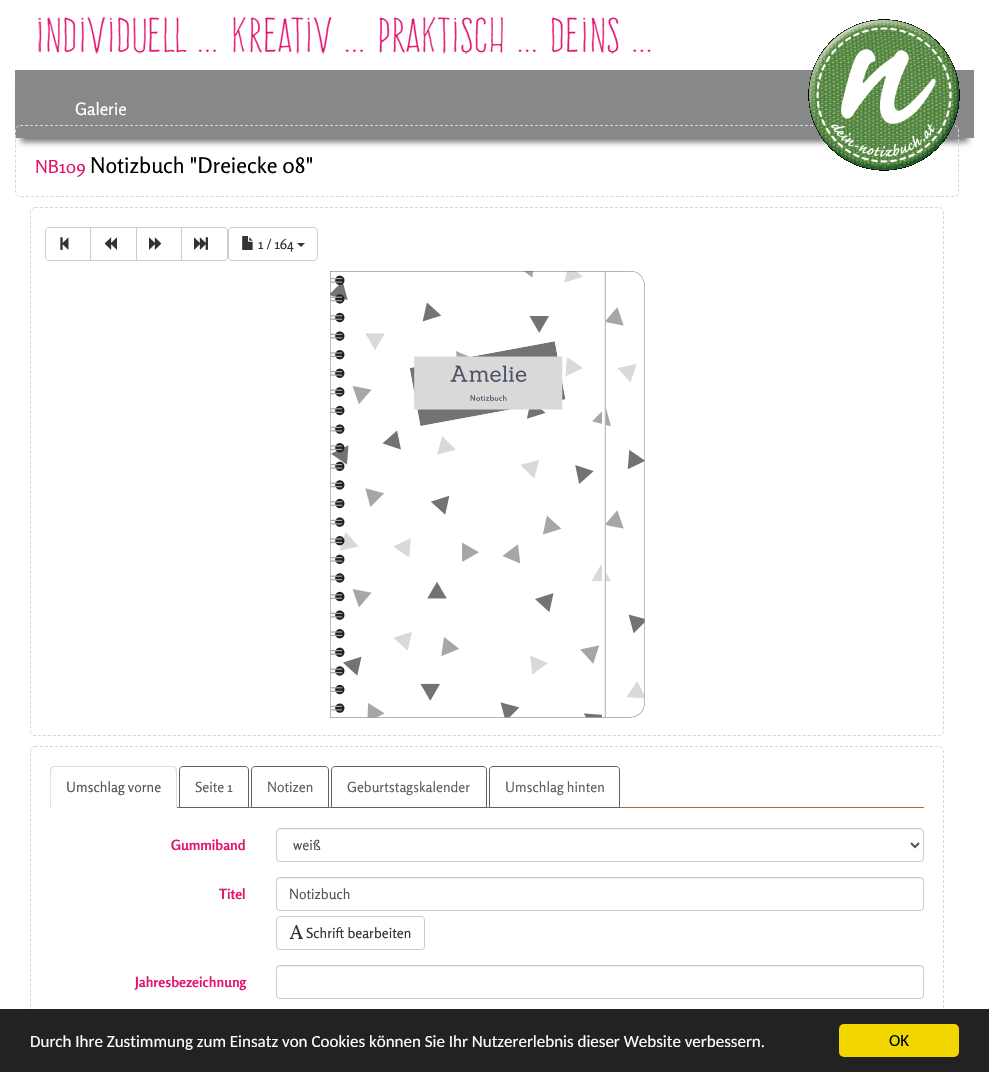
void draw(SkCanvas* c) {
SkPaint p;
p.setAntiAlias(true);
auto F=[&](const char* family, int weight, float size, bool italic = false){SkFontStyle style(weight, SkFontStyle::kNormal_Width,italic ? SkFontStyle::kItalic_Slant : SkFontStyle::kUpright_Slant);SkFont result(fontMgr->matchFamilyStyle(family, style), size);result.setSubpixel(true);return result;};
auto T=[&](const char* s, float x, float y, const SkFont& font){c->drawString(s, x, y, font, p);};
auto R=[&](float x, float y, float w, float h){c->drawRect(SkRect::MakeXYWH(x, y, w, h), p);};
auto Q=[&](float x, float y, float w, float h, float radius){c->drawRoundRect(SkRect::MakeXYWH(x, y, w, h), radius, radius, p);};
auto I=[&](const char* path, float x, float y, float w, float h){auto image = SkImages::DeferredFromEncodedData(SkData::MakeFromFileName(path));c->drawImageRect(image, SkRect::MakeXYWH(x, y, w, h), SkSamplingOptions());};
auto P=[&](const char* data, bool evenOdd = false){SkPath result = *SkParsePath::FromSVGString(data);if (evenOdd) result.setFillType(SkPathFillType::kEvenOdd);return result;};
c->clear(0xffffffff);
I("1.png",38,17,613,37);
p.setColor(0xff777777);
p.setMaskFilter(SkMaskFilter::MakeBlur(kNormal_SkBlurStyle, 3));
c->drawRect(SkRect::MakeXYWH(21,86,947,56),p);
p.setMaskFilter(nullptr);
p.setColor(0xff87888a);
R(15,70,959,68);
p.setStroke(true);
p.setStrokeWidth(1);
p.setColor(0xffd6d6d6);
p.setPathEffect(SkDashPathEffect::Make({{3,2}}, 0));
c->drawPath(P("M20 125.5h934c2.5 0 4.5 2 4.5 4.5v62c0 2.5-2 4.5-4.5 4.5h-934c-2.5 0-4.5-2-4.5-4.5v-62c0-2.5 2-4.5 4.5-4.5z"),p);
p.setPathEffect(nullptr);
I("2.png",808,19,152,152);
auto f1 = F("Rosario",400,17);
p.setStroke(false);
p.setColor(0xffffffff);
T("Galerie",75,115,f1);
auto f2 = F("Rosario",400,18);
p.setColor(0xffe41770);
T("NB109",35,173,f2);
auto f3 = F("Rosario",400,21.6);
p.setColor(0xff000000);
T("Notizbuch \"Dreiecke 08\"",90,173,f3);
p.setStroke(true);
p.setColor(0xffd6d6d6);
p.setPathEffect(SkDashPathEffect::Make({{3,2}}, 0));
c->drawPath(P("M35 207.5h904c2.5 0 4.5 2 4.5 4.5v519c0 2.5-2 4.5-4.5 4.5h-904c-2.5 0-4.5-2-4.5-4.5v-519c0-2.5 2-4.5 4.5-4.5z"),p);
p.setPathEffect(nullptr);
p.setColor(0xffcccccc);
c->drawPath(P("M49 227.5h41.5v33h-41.5c-2 0-3.5-1.5-3.5-3.5v-26c0-2 1.5-3.5 3.5-3.5z"),p);
I("3.png",60,237,9,13);
c->drawRect(SkRect::MakeXYWH(90.5,227.5,46,33),p);
I("4.png",104,237,13,13);
c->drawRect(SkRect::MakeXYWH(136.5,227.5,45,33),p);
I("5.png",149,237,13,13);
p.setStroke(false);
p.setColor(0xffffffff);
c->drawPath(P("M181.5 227.5h42.5c2 0 3.5 1.5 3.5 3.5v26c0 2-1.5 3.5-3.5 3.5h-42.5z"),p);
p.setStroke(true);
p.setColor(0xffcccccc);
c->drawPath(P("M181.5 227.5h42.5c2 0 3.5 1.5 3.5 3.5v26c0 2-1.5 3.5-3.5 3.5h-42.5z"),p);
I("6.png",194,237,15,13);
c->drawRoundRect(SkRect::MakeXYWH(228.5,227.5,89,33),3.5,3.5,p);
I("7.png",242,236,11,14);
auto f4 = F("Rosario",400,14);
p.setStroke(false);
p.setColor(0xff333333);
T("1 / 164",258,249,f4);
c->drawPath(P("M297 243h8l-4 4z"),p);
I("8.png",330,271,315,447);
p.setStroke(true);
p.setColor(0xffd6d6d6);
p.setPathEffect(SkDashPathEffect::Make({{3,2}}, 0));
c->drawPath(P("M35 746.5h904c2.5 0 4.5 2 4.5 4.5v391c0 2.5-2 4.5-4.5 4.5h-904c-2.5 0-4.5-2-4.5-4.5v-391c0-2.5 2-4.5 4.5-4.5z"),p);
p.setPathEffect(nullptr);
p.setStroke(false);
p.setColor(0xffa96941);
R(177,807,747,1);
p.setColor(0xffdddddd);
c->drawPath(P("M54 766l-3 1l1 1l2-1h119l2 1l1-1l-3-1z"),p);
c->drawPath(P("M177 808v-38c0-1-1-2-1-3l-1 1c2 2 1 34 1 39z"),p);
c->drawPath(P("M50 808l1-1c0-5-1-37 1-39l-1-1l-1 3z"),p);
p.setColor(0xff555555);
T("Umschlag vorne",66,792,f4);
p.setStroke(true);
p.setColor(0xff606060);
c->drawPath(P("M183 766.5h62c2 0 3.5 1.5 3.5 3.5v37.5h-69v-37.5c0-2 1.5-3.5 3.5-3.5z"),p);
p.setStroke(false);
T("Seite 1",195,792,f4);
p.setStroke(true);
c->drawPath(P("M255 766.5h70c2 0 3.5 1.5 3.5 3.5v37.5h-77v-37.5c0-2 1.5-3.5 3.5-3.5z"),p);
p.setStroke(false);
T("Notizen",267,792,f4);
p.setStroke(true);
c->drawPath(P("M335 766.5h148c2 0 3.5 1.5 3.5 3.5v37.5h-155v-37.5c0-2 1.5-3.5 3.5-3.5z"),p);
p.setStroke(false);
T("Geburtstagskalender",347,792,f4);
p.setStroke(true);
c->drawPath(P("M493 766.5h123c2 0 3.5 1.5 3.5 3.5v37.5h-130v-37.5c0-2 1.5-3.5 3.5-3.5z"),p);
p.setStroke(false);
T("Umschlag hinten",505,792,f4);
auto f5 = F("Rosario",700,14);
p.setColor(0xffe41770);
T("Gummiband",171,850,f5);
p.setColor(0xffececec);
c->drawPath(P("M280 830h640c2 0 3 1 3 3v-1c0-2-1-3-3-3h-640c-2 0-3 1-3 3v1c0-2 1-3 3-3z"),p);
p.setStroke(true);
p.setColor(0xffcccccc);
c->drawRoundRect(SkRect::MakeXYWH(276.5,828.5,647,33),3.5,3.5,p);
p.setStrokeWidth(2);
p.setColor(0xff555555);
c->drawPath(P("M911 843l4 4l4-4"),p);
p.setStroke(false);
T("weiß",293,850,f4);
p.setColor(0xffe41770);
T("Titel",219,899,f5);
p.setColor(0xffececec);
c->drawPath(P("M280 879h640c2 0 3 1 3 3v-1c0-2-1-3-3-3h-640c-2 0-3 1-3 3v1c0-2 1-3 3-3z"),p);
p.setStroke(true);
p.setStrokeWidth(1);
p.setColor(0xffcccccc);
c->drawRoundRect(SkRect::MakeXYWH(276.5,877.5,647,33),3.5,3.5,p);
p.setStroke(false);
p.setColor(0xff555555);
T("Notizbuch",289,899,f4);
p.setStroke(true);
p.setColor(0xffcccccc);
c->drawRoundRect(SkRect::MakeXYWH(276.5,916.5,148,33),3.5,3.5,p);
I("9.png",289,925,14,14);
p.setStroke(false);
p.setColor(0xff333333);
T("Schrift bearbeiten",306,938,f4);
p.setColor(0xffe41770);
T("Jahresbezeichnung",135,987,f5);
p.setColor(0xffececec);
c->drawPath(P("M280 967h640c2 0 3 1 3 3v-1c0-2-1-3-3-3h-640c-2 0-3 1-3 3v1c0-2 1-3 3-3z"),p);
p.setStroke(true);
p.setColor(0xffcccccc);
c->drawRoundRect(SkRect::MakeXYWH(276.5,965.5,647,33),3.5,3.5,p);
p.setStroke(false);
p.setColor(0xff222222);
R(0,1009,989,63);
auto f6 = F("Carlito",400,17);
p.setColor(0xffffffff);
T("Durch Ihre Zustimmung zum Einsatz von Cookies können Sie Ihr Nutzererlebnis dieser Website verbessern.",30,1047,f6);
p.setColor(0xfff1d600);
Q(839,1024,120,33,5);
p.setColor(0xff000000);
T("OK",889,1046,f6);
}
